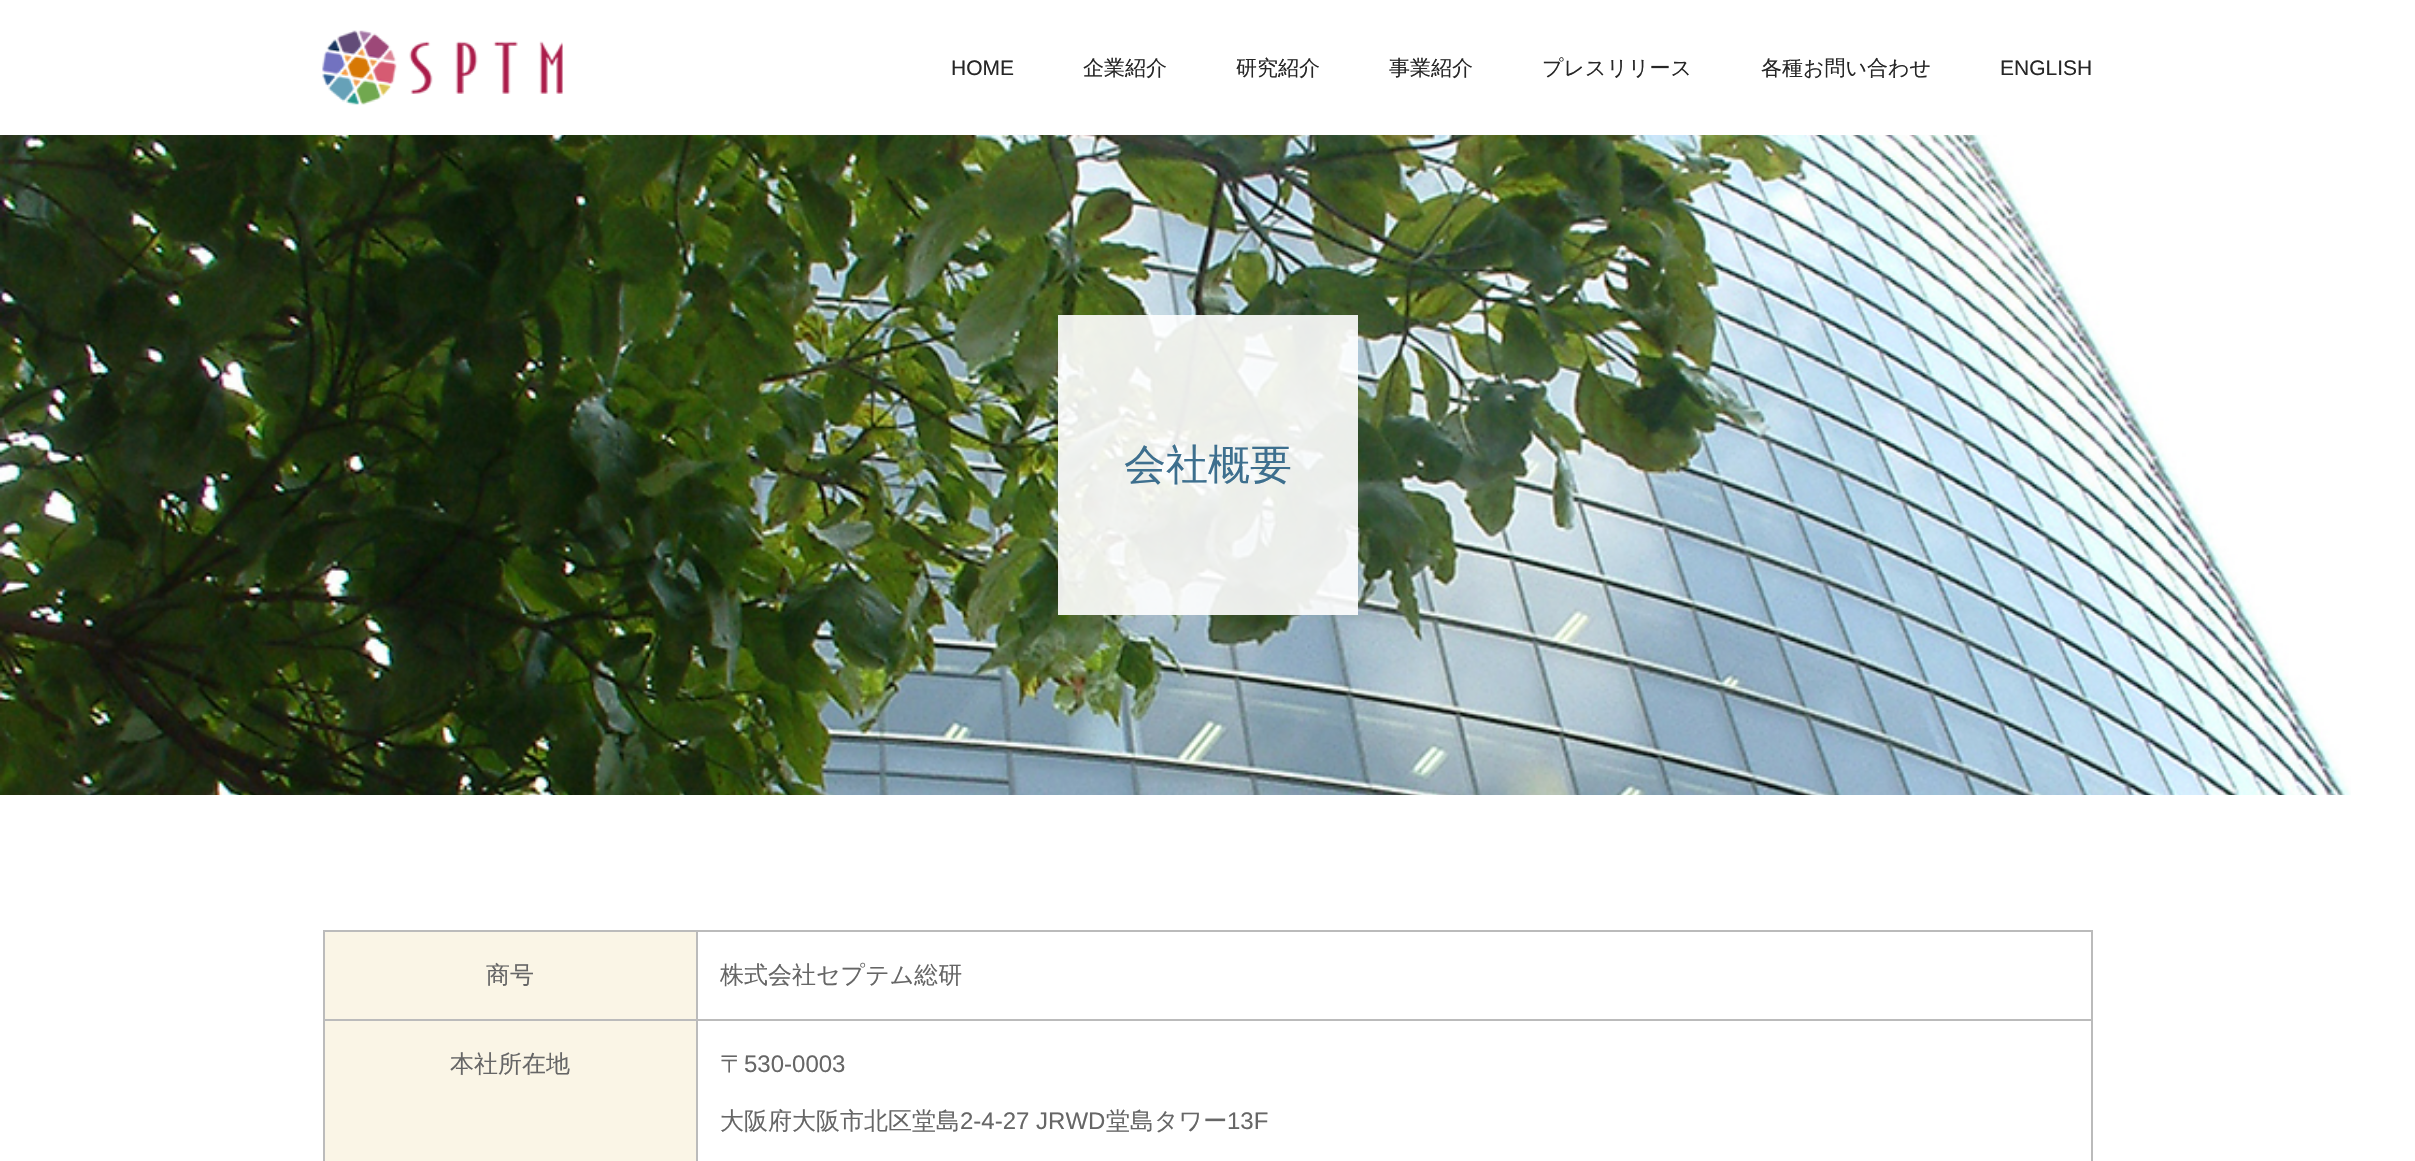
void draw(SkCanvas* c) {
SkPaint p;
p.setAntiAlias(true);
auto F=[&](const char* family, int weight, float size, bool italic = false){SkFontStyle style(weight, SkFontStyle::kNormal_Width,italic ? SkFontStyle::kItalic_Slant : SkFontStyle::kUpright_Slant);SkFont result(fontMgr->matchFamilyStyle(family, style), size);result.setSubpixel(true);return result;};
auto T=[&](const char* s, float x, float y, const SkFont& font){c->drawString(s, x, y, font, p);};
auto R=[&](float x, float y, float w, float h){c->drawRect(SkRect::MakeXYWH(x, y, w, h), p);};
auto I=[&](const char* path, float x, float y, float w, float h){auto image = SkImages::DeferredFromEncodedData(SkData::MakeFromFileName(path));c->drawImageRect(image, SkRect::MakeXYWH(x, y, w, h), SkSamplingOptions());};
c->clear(0xffffffff);
I("1.png",322,30,241,75);
auto f1 = F("Liberation Sans",400,21);
p.setColor(0xff262626);
T("HOME",951,75,f1);
auto f2 = F("WenQuanYi Zen Hei",500,21);
T("企業紹介",1083,75,f2);
T("研究紹介",1236,75,f2);
T("事業紹介",1389,75,f2);
T("プレスリリース",1542,75,f2);
T("各種お問い合わせ",1761,75,f2);
T("ENGLISH",2000,75,f1);
I("2.png",0,135,2351,660);
p.setColor(0xe6ffffff);
R(1058,315,300,300);
auto f3 = F("WenQuanYi Zen Hei",500,42);
p.setColor(0xff3d6f8e);
T("会社概要",1124,479,f3);
p.setColor(0xfffaf5e6);
R(325,932,371,87);
p.setColor(0xffbbbbbb);
R(696,930,1397,2);
R(696,1019,1397,2);
R(696,1019,2,142);
R(323,1019,375,2);
R(696,930,2,90);
R(323,930,375,2);
R(323,1019,2,142);
R(323,930,2,90);
auto f4 = F("WenQuanYi Zen Hei",500,24);
p.setColor(0xff666666);
T("商号",486,983,f4);
p.setColor(0xffbbbbbb);
R(2091,1019,2,142);
R(2091,930,2,90);
p.setColor(0xff666666);
T("株式会社セプテム総研",720,983,f4);
p.setColor(0xfffaf5e6);
R(325,1021,371,140);
p.setColor(0xff666666);
T("本社所在地",450,1072,f4);
T("〒",720,1072,f4);
auto f5 = F("Liberation Sans",400,24);
T("530-0003",744,1072,f5);
T("大阪府大阪市北区堂島",720,1129,f4);
T("2-4-27 JRWD",960,1129,f5);
T("堂島タワー",1106,1129,f4);
T("13F",1227,1129,f5);
}
